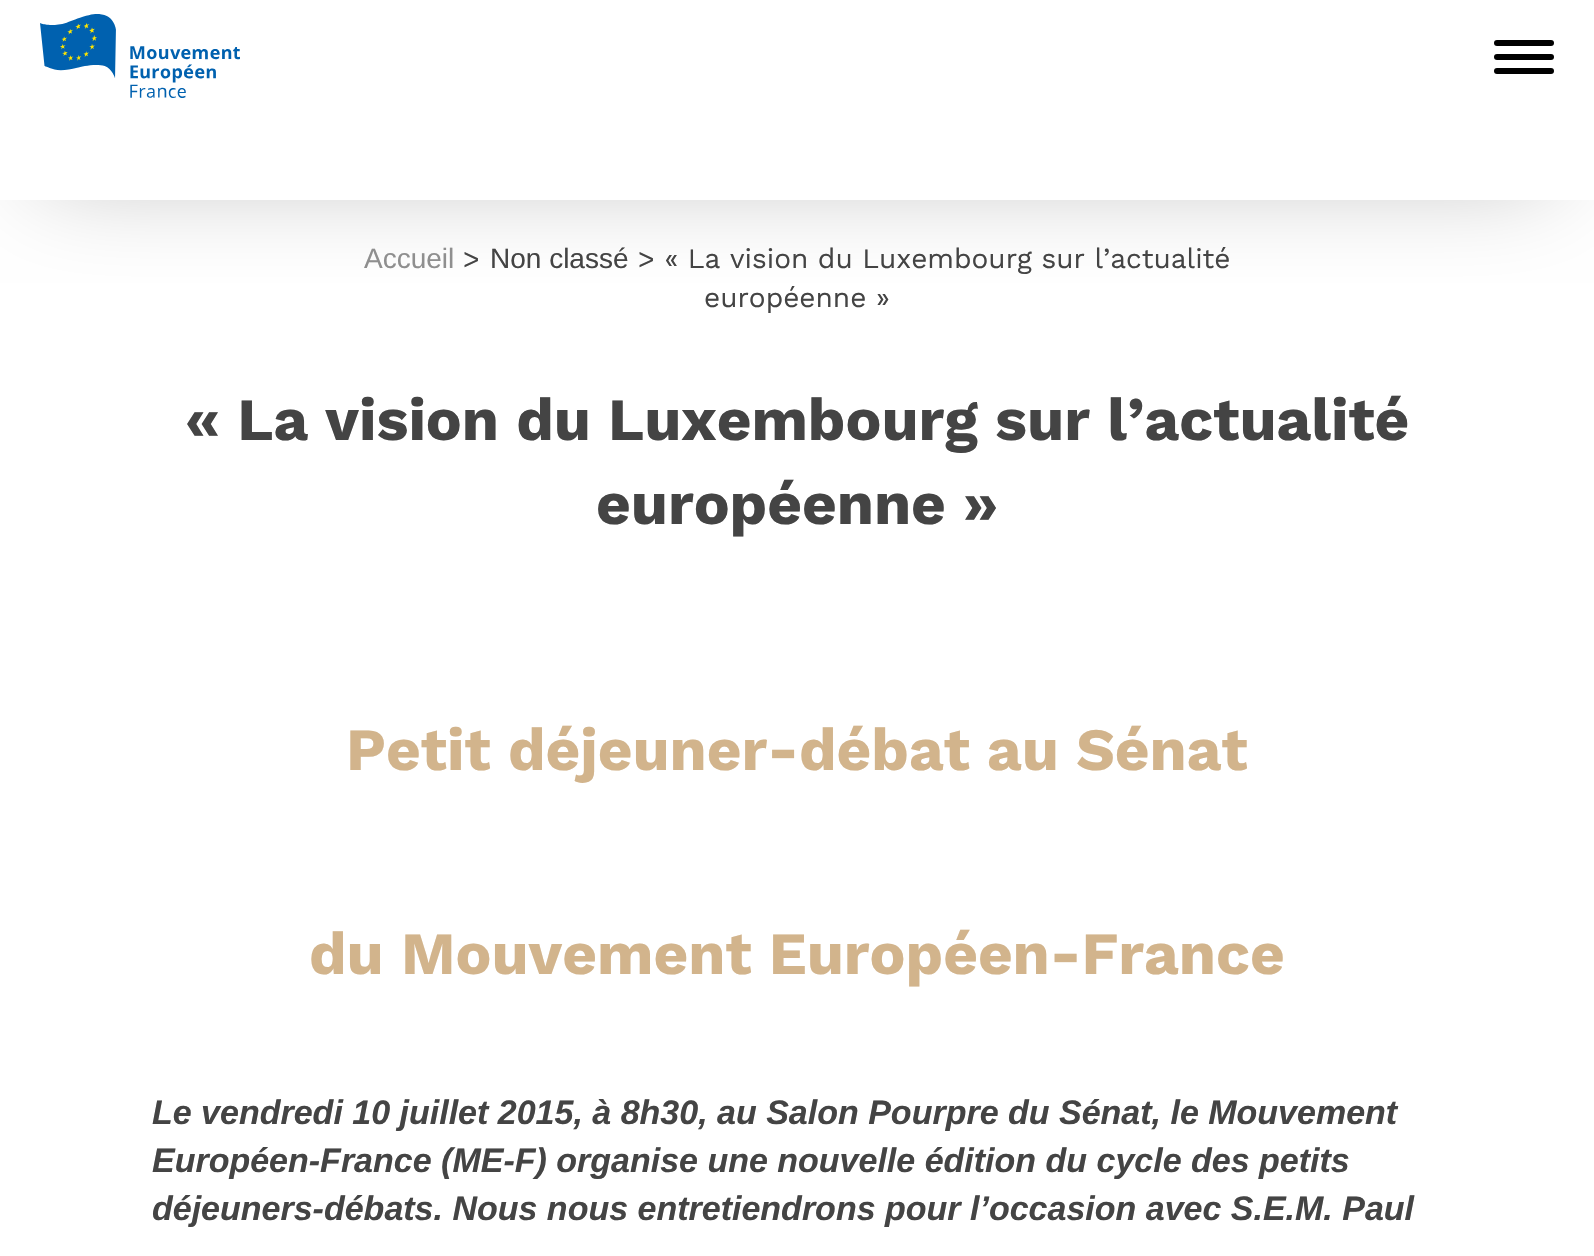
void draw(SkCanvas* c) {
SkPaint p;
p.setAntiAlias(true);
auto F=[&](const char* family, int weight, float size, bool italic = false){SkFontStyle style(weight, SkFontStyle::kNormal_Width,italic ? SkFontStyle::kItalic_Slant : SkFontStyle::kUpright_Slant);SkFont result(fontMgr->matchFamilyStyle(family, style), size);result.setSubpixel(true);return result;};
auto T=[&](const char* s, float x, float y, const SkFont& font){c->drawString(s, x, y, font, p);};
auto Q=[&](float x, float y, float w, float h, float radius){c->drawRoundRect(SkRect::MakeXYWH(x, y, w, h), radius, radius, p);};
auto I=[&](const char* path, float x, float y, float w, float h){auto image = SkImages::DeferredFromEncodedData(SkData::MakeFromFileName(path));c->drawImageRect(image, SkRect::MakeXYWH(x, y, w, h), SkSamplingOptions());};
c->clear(0xffffffff);
c->save();
c->clipRect(SkRect::MakeXYWH(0,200,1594,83));
p.setColor(0xffbfbfbf);
p.setMaskFilter(SkMaskFilter::MakeBlur(kNormal_SkBlurStyle, 50));
c->drawRect(SkRect::MakeXYWH(40,60,1514,120),p);
p.setMaskFilter(nullptr);
c->restore();
I("1.png",40,14,200,84);
p.setColor(0xff000000);
Q(1494,40,60,6,3);
Q(1494,54,60,6,3);
Q(1494,68,60,6,3);
auto f1 = F("Liberation Sans",400,28);
p.setColor(0xff8f8f8f);
T("Accueil",364,268,f1);
auto f2 = F("Work Sans",400,28);
p.setColor(0xff444444);
T(">",463,268,f2);
T("Non classé",490,268,f1);
T("> « La vision du Luxembourg sur l’actualité",638,268,f2);
T("européenne »",704,307,f2);
auto f3 = F("Work Sans",700,60);
T("« La vision du Luxembourg sur l’actualité",185,440,f3);
T("européenne »",596,524,f3);
p.setColor(0xffd2b48c);
T("Petit déjeuner-débat au Sénat",346,770,f3);
T("du Mouvement Européen-France",309,974,f3);
auto f4 = F("Liberation Sans",700,34,true);
p.setColor(0xff444444);
T("Le vendredi 10 juillet 2015, à 8h30, au Salon Pourpre du Sénat, le Mouvement",152,1124,f4);
T("Européen-France (ME-F) organise une nouvelle édition du cycle des petits",152,1172,f4);
T("déjeuners-débats. Nous nous entretiendrons pour l’occasion avec S.E.M. Paul",152,1220,f4);
}
